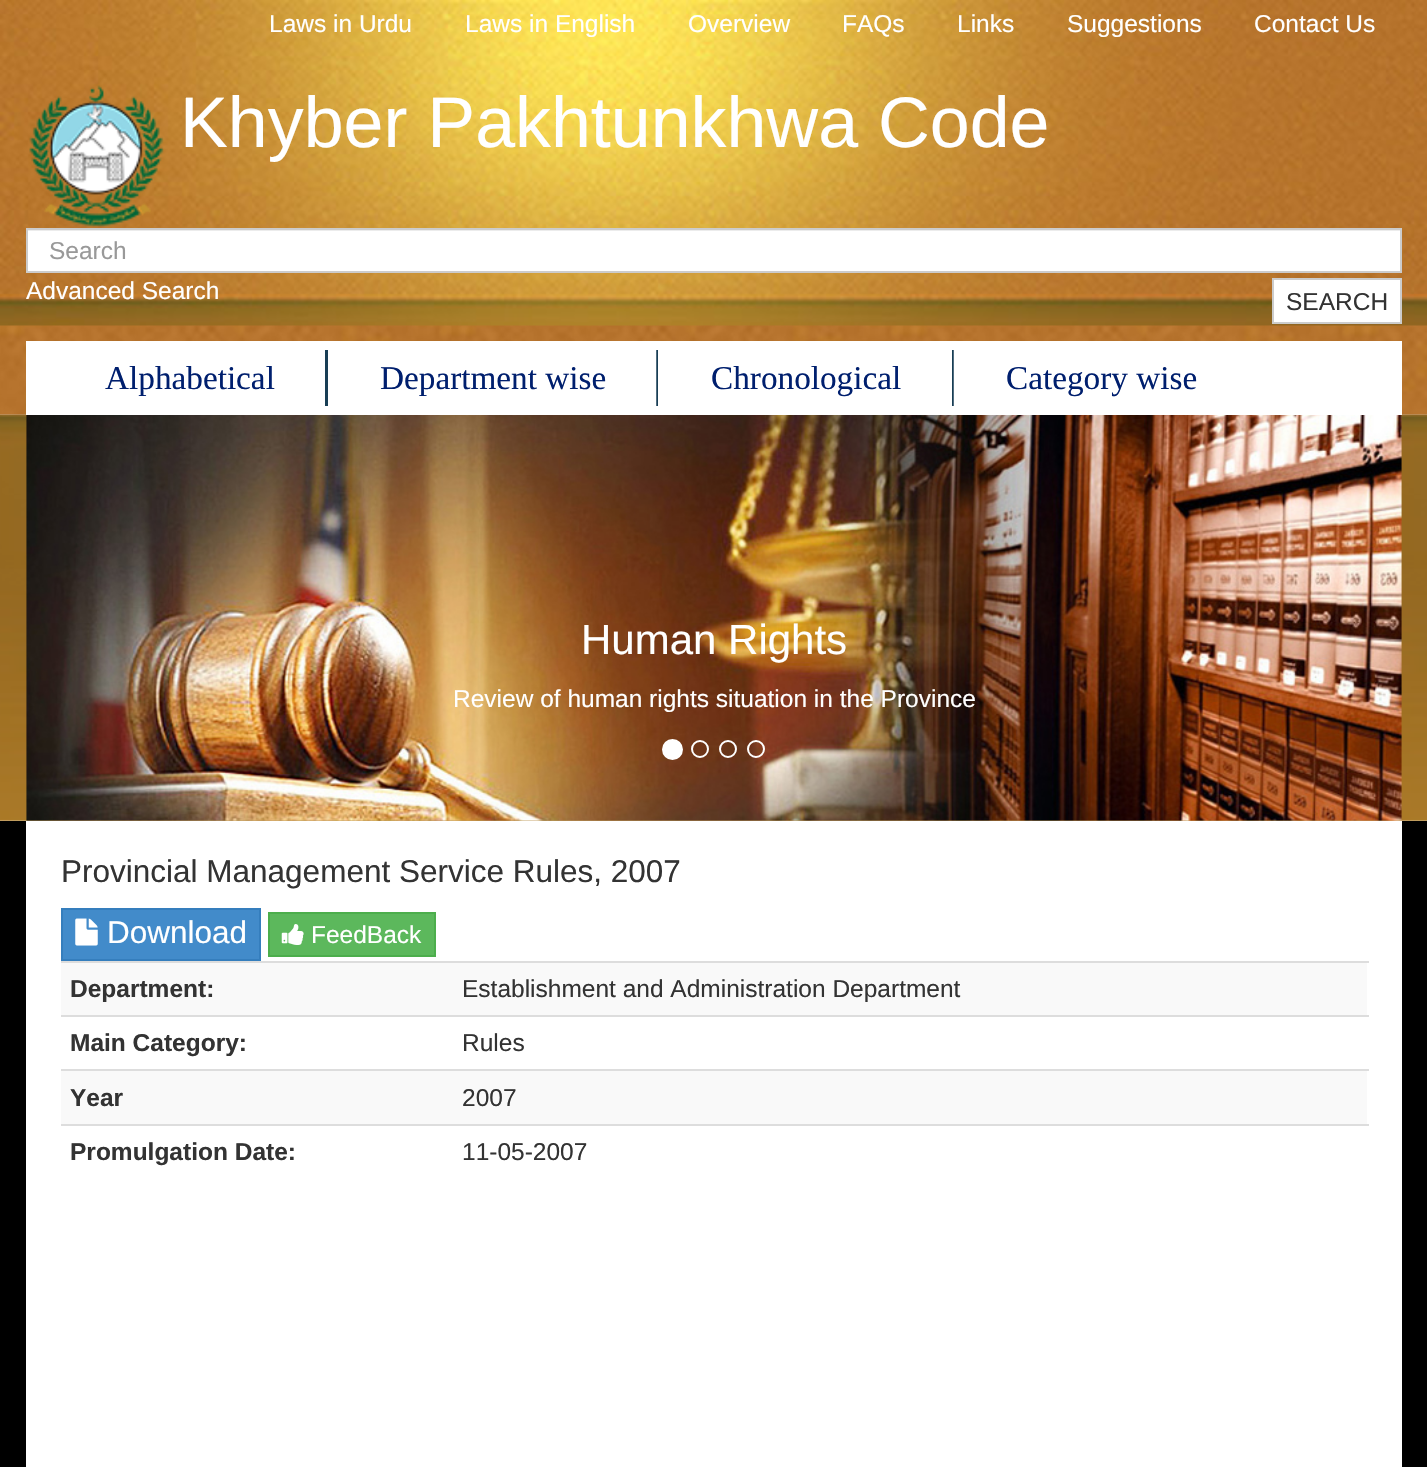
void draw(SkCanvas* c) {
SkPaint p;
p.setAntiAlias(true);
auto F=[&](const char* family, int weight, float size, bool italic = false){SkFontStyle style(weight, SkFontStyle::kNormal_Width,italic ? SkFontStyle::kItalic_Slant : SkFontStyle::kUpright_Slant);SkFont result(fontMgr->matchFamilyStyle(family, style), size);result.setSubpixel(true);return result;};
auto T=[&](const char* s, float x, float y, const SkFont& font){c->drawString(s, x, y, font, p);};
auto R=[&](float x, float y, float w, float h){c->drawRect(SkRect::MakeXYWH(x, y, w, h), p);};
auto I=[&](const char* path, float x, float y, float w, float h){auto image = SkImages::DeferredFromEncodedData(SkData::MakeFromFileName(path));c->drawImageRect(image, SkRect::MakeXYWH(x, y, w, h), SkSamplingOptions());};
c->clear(0xffffffff);
I("1.png",0,325,1427,90);
I("2.png",0,0,1427,326);
auto f1 = F("Liberation Sans",400,24.5);
p.setColor(0xffffffff);
T("Laws in Urdu",269,32,f1);
T("Laws in English",465,32,f1);
T("Overview",688,32,f1);
T("FAQs",842,32,f1);
T("Links",957,32,f1);
T("Suggestions",1067,32,f1);
T("Contact Us",1254,32,f1);
I("3.png",29,85,135,142);
auto f2 = F("Liberation Sans",400,71.75);
T("Khyber Pakhtunkhwa Code",180,147,f2);
R(28,231,1372,40);
p.setColor(0xffececec);
R(28,230,1372,1);
p.setStroke(true);
p.setStrokeWidth(2);
p.setColor(0xffcccccc);
c->drawRect(SkRect::MakeXYWH(27,229,1374,43),p);
p.setStroke(false);
p.setColor(0xff999999);
T("Search",49,259,f1);
p.setColor(0xffffffff);
T("Advanced Search",26,299,f1);
c->drawRect(SkRect::MakeXYWH(1273,279,128,44),p);
p.setStroke(true);
p.setColor(0xffcccccc);
c->drawRect(SkRect::MakeXYWH(1273,279,128,44),p);
p.setStroke(false);
p.setColor(0xff333333);
T("SEARCH",1286,310,f1);
I("6.png",0,414,1427,407);
p.setColor(0xffffffff);
R(26,341,1376,74);
p.setColor(0xff183e55);
R(325,350,3,56);
auto f3 = F("Liberation Serif",400,33.25);
p.setColor(0xff001f6e);
T("Alphabetical",105,389,f3);
I("4.png",656,350,2,56);
T("Department wise",380,389,f3);
I("5.png",952,350,2,56);
T("Chronological",711,389,f3);
T("Category wise",1006,389,f3);
I("7.png",26,415,1376,406);
auto f4 = F("Liberation Sans",400,42);
p.setColor(0xffffffff);
T("Human Rights",581,654,f4);
T("Review of human rights situation in the Province",453,707,f1);
c->drawCircle(672.5,749.5,9.5,p);
p.setStroke(true);
c->drawCircle(672.5,749.5,9.5,p);
c->drawCircle(700,749,8,p);
c->drawCircle(728,749,8,p);
c->drawCircle(756,749,8,p);
p.setStroke(false);
p.setColor(0xff000000);
R(0,821,1427,646);
p.setColor(0xffffffff);
R(26,821,1376,646);
auto f5 = F("Liberation Sans",400,31.5);
p.setColor(0xff333333);
T("Provincial Management Service Rules, 2007",61,882,f5);
p.setColor(0xff428bca);
c->drawRect(SkRect::MakeXYWH(62,909,198,51),p);
p.setStroke(true);
p.setColor(0xff357ebd);
c->drawRect(SkRect::MakeXYWH(62,909,198,51),p);
I("8.png",75,918,23,28);
p.setStroke(false);
p.setColor(0xffffffff);
T("Download",107,943,f5);
p.setColor(0xff5cb85c);
c->drawRect(SkRect::MakeXYWH(269,913,166,43),p);
p.setStroke(true);
p.setColor(0xff4cae4c);
c->drawRect(SkRect::MakeXYWH(269,913,166,43),p);
I("9.png",281,924,23,21);
p.setStroke(false);
p.setColor(0xffffffff);
T("FeedBack",311,943,f1);
p.setColor(0xfff9f9f9);
R(61,963,1306,52);
auto f6 = F("Liberation Sans",700,24.5);
p.setColor(0xff333333);
T("Department:",70,997,f6);
p.setColor(0xffdddddd);
R(61,961,1308,2);
p.setColor(0xff333333);
T("Establishment and Administration Department",462,997,f1);
T("Main Category:",70,1051,f6);
p.setColor(0xffdddddd);
R(61,1015,1308,2);
p.setColor(0xff333333);
T("Rules",462,1051,f1);
p.setColor(0xfff9f9f9);
R(61,1071,1306,53);
p.setColor(0xff333333);
T("Year",70,1106,f6);
p.setColor(0xffdddddd);
R(61,1069,1308,2);
p.setColor(0xff333333);
T("2007",462,1106,f1);
T("Promulgation Date:",70,1160,f6);
p.setColor(0xffdddddd);
R(61,1124,1308,2);
p.setColor(0xff333333);
T("11-05-2007",462,1160,f1);
}
